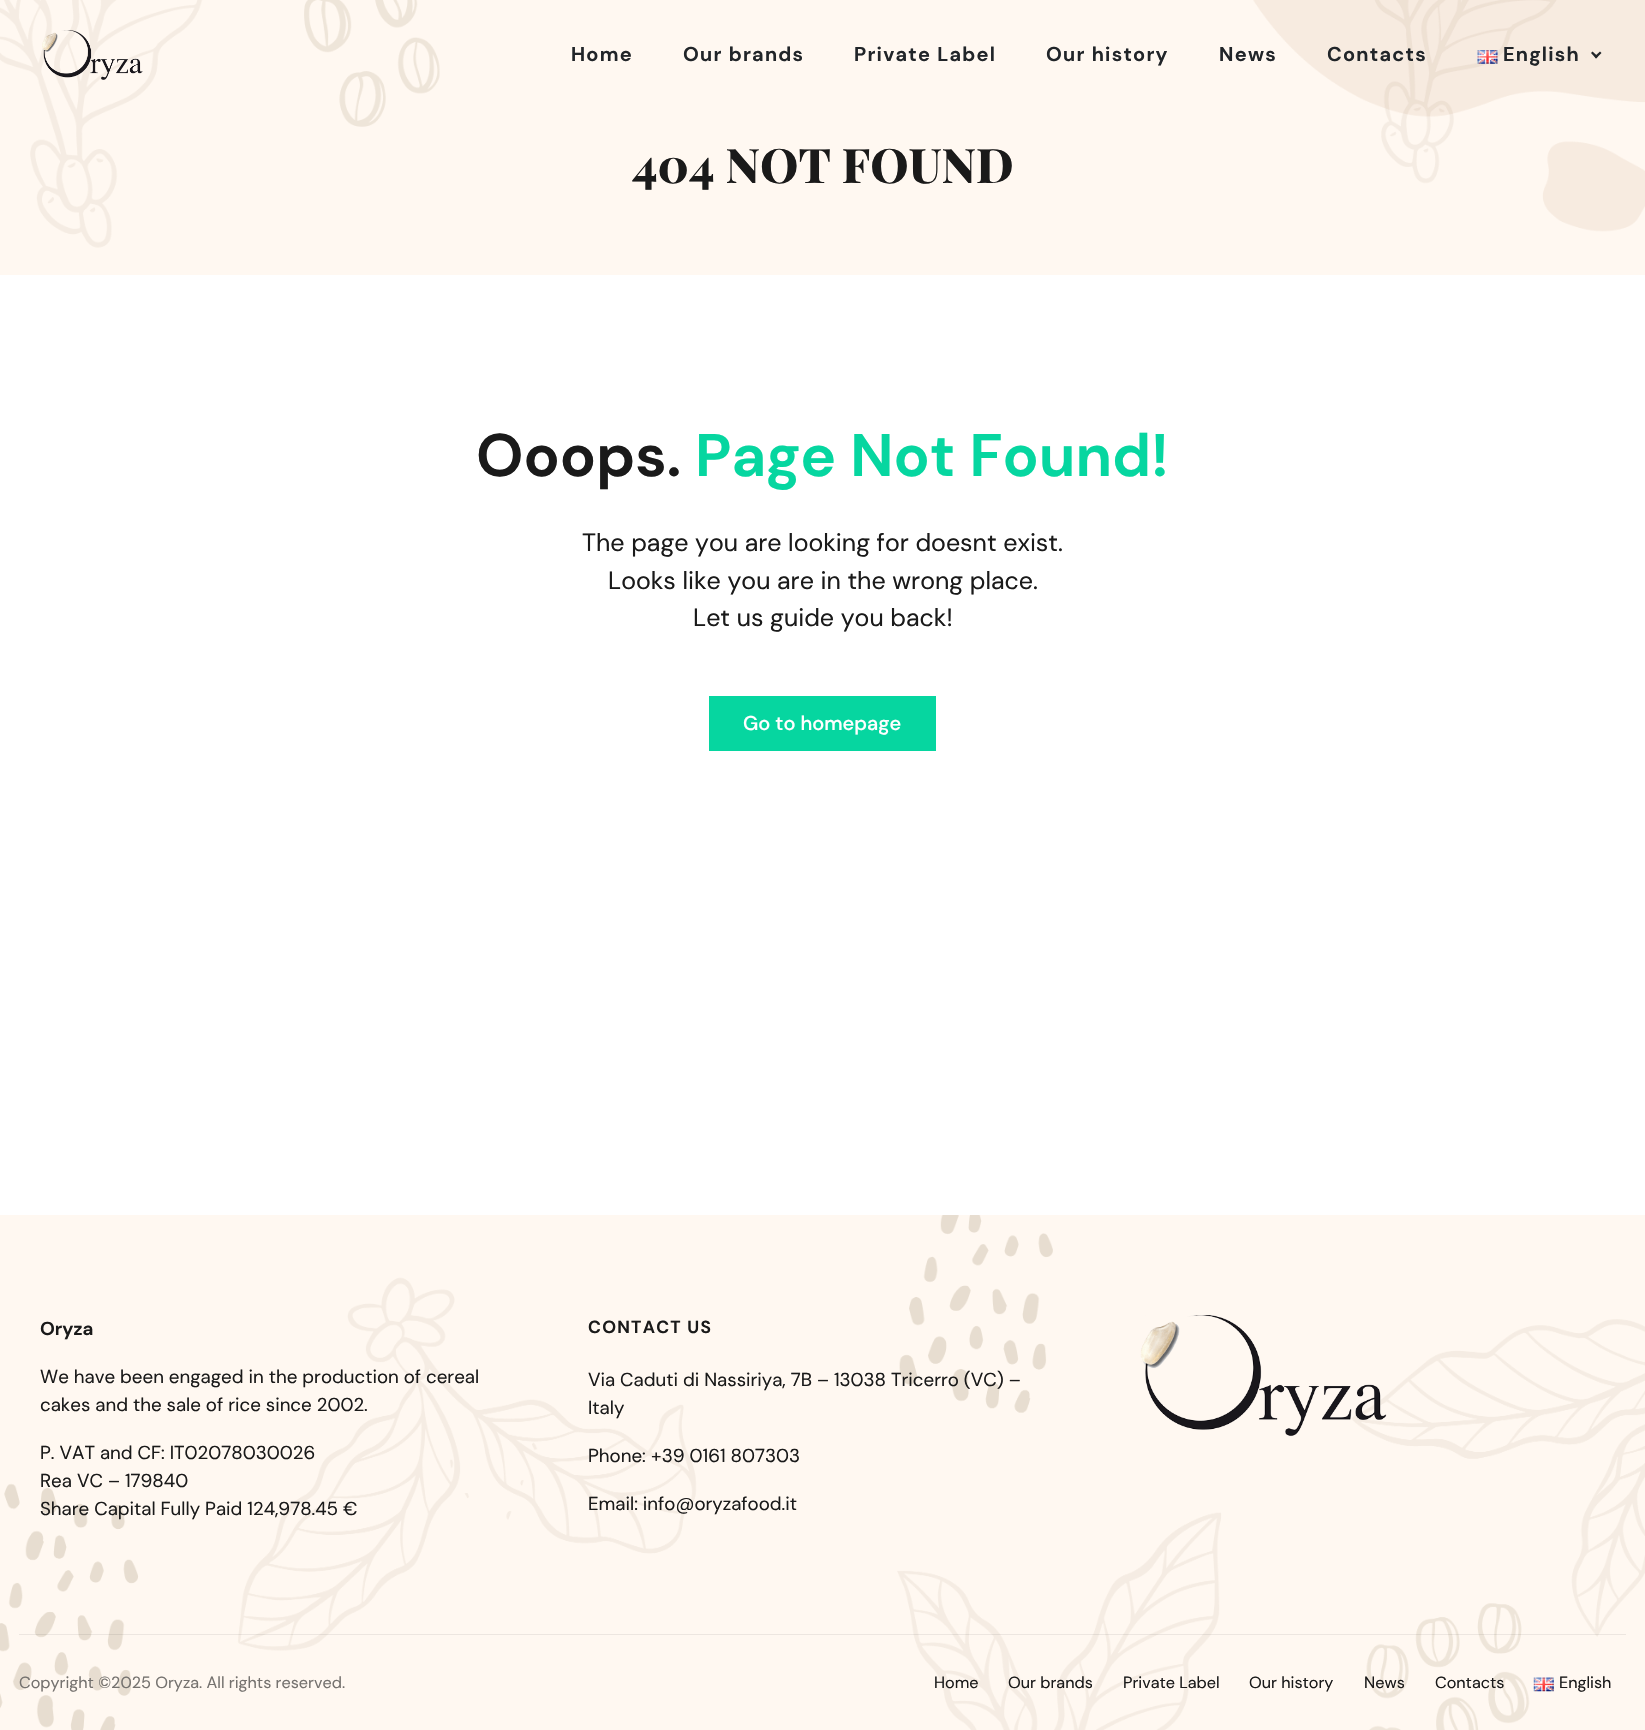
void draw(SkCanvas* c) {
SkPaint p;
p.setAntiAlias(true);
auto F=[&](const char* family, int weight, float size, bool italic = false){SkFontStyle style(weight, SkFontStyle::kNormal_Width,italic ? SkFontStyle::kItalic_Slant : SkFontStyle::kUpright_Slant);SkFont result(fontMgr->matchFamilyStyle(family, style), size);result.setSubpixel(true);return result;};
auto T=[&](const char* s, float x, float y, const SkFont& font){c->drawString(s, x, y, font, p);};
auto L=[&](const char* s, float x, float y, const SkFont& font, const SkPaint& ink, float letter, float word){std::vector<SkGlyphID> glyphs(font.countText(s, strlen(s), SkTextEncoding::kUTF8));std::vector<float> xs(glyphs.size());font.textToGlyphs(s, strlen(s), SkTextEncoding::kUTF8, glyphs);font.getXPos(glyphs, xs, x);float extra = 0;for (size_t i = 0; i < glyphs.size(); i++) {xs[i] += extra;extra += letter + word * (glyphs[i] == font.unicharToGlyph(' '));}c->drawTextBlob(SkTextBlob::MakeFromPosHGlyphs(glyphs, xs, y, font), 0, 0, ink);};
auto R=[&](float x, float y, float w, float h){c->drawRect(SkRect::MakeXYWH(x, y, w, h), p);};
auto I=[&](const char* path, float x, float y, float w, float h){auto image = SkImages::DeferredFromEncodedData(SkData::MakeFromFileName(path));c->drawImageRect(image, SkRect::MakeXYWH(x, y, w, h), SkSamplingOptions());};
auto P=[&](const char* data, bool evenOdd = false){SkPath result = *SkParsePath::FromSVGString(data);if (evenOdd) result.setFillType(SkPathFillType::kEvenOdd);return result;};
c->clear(0xffffffff);
p.setColor(0xfffff8f1);
R(0,0,1645,275);
I("3.png",0,0,1645,248);
I("1.png",42,30,101,50);
auto f1 = F("DM Sans",700,20);
p.setColor(0xff212529);
L("Home",571,61,f1,p,1.25,0);
L("Our brands",683,61,f1,p,1.25,0);
L("Private Label",854,61,f1,p,1.25,0);
L("Our history",1046,61,f1,p,1.25,0);
L("News",1219,61,f1,p,1.25,0);
L("Contacts",1327,61,f1,p,1.25,0);
I("2.png",1477,50,21,14);
L("English",1503,61,f1,p,1.25,0);
c->drawPath(P("M1601.5 53l-5.5 5.5l-1.5-2l5.5-5z"),p);
c->drawPath(P("M1598 56.5l-2 2l-5-5.5l1.5-1.5z"),p);
auto f2 = F("Playfair Display",800,47.5);
p.setColor(0xff1a1a1a);
T("404 NOT FOUND",632,183,f2);
auto f3 = F("DM Sans",700,60);
T("Ooops.",476,476,f3);
p.setColor(0xff06d6a0);
T("Page Not Found!",695,476,f3);
auto f4 = F("DM Sans",400,25);
p.setColor(0xff1a1a1a);
T("The page you are looking for doesnt exist.",582,551,f4);
T("Looks like you are in the wrong place.",608,589,f4);
T("Let us guide you back!",693,626,f4);
p.setColor(0xff06d6a0);
R(709,696,227,55);
auto f5 = F("DM Sans",500,20);
p.setColor(0xffffffff);
T("Go to homepage",743,730,f5);
p.setColor(0xfffff8f1);
R(0,1215,1645,515);
I("4.png",0,1215,1645,515);
p.setColor(0x12000000);
R(19,1634,1607,1);
auto f6 = F("DM Sans",700,18.75);
p.setColor(0xff1a1a1a);
T("Oryza",40,1335,f6);
auto f7 = F("DM Sans",400,18.75);
T("We have been engaged in the production of cereal",40,1383,f7);
T("cakes and the sale of rice since 2002.",40,1411,f7);
T("P. VAT and CF: IT02078030026",40,1459,f7);
T("Rea VC – 179840",40,1487,f7);
T("Share Capital Fully Paid 124,978.45 €",40,1515,f7);
auto f8 = F("DM Sans",700,17.5);
L("CONTACT US",588,1333,f8,p,1.25,0);
T("Via Caduti di Nassiriya, 7B – 13038 Tricerro (VC) –",588,1386,f7);
T("Italy",588,1414,f7);
T("Phone: +39 0161 807303",588,1462,f7);
T("Email: info@oryzafood.it",588,1510,f7);
I("5.png",1140,1315,247,122);
auto f9 = F("DM Sans",400,16.25);
p.setColor(0xff75726f);
T("Copyright ©2025 Oryza. All rights reserved.",19,1688,f9);
p.setColor(0xff1a1a1a);
T("Home",934,1688,f9);
T("Our brands",1008,1688,f9);
T("Private Label",1123,1688,f9);
T("Our history",1249,1688,f9);
T("News",1364,1688,f9);
T("Contacts",1435,1688,f9);
I("6.png",1533,1677,21,15);
T("English",1559,1688,f9);
}
